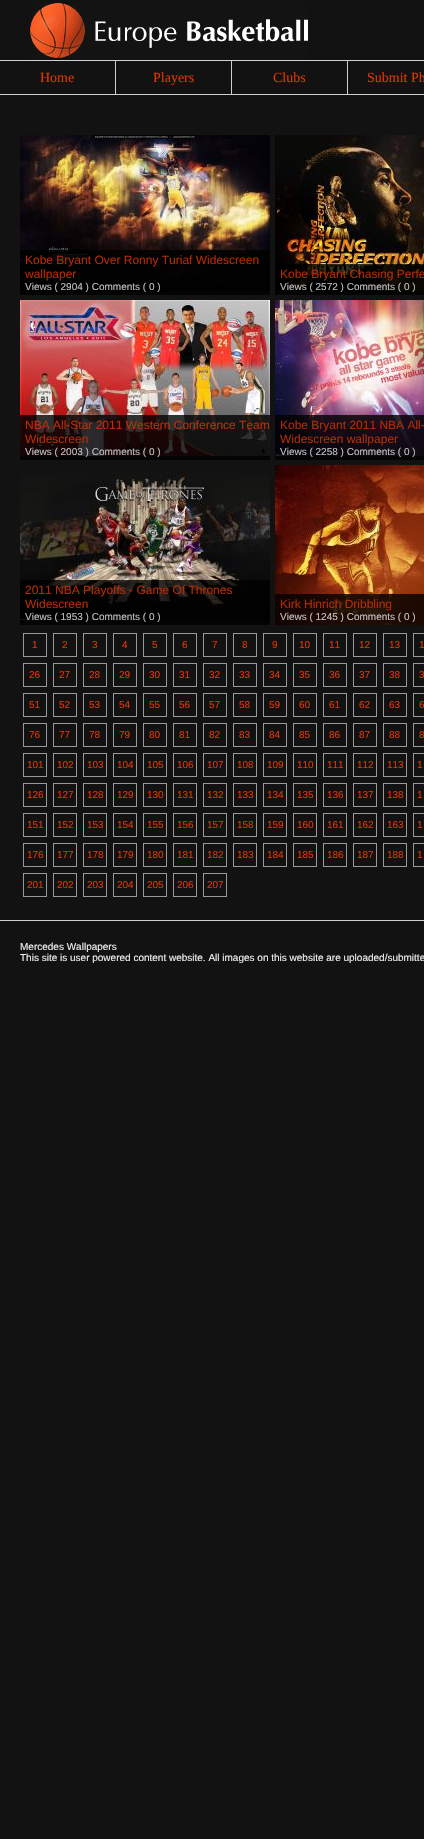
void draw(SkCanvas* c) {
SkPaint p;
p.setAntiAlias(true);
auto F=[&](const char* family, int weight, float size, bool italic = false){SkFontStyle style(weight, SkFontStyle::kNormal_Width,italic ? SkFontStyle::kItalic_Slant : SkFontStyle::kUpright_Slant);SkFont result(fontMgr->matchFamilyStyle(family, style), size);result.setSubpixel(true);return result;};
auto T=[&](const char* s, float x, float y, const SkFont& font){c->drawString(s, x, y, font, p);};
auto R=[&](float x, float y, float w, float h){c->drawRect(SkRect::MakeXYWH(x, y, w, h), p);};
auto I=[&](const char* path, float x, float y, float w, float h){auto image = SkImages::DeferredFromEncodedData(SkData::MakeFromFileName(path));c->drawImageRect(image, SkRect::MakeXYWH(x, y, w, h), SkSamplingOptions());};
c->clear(0xff121212);
I("1.png",30,3,278,55);
p.setColor(0xffd0d0d0);
R(0,60,424,1);
R(0,94,424,1);
R(115,61,1,33);
auto f1 = F("Liberation Serif",400,14);
p.setColor(0xffdf3504);
T("Home",40,82,f1);
p.setColor(0xffd0d0d0);
R(231,61,1,33);
p.setColor(0xffdf3504);
T("Players",153,82,f1);
p.setColor(0xffd0d0d0);
R(347,61,1,33);
p.setColor(0xffdf3504);
T("Clubs",273,82,f1);
T("Submit Ph",367,82,f1);
I("2.png",20,135,250,156);
p.setColor(0xcc000000);
R(20,250,250,45);
auto f2 = F("Liberation Sans",400,12);
p.setColor(0xffb32b04);
T("Kobe Bryant Over Ronny Turiaf Widescreen",25,264,f2);
T("wallpaper",25,278,f2);
auto f3 = F("Liberation Sans",400,10);
p.setColor(0xffc0c0c0);
T("Views ( 2904 ) Comments ( 0 )",25,290,f3);
I("3.png",275,135,149,156);
p.setColor(0xcc000000);
R(275,264,149,31);
p.setColor(0xffb32b04);
T("Kobe Bryant Chasing Perfe",280,278,f2);
p.setColor(0xffc0c0c0);
T("Views ( 2572 ) Comments ( 0 )",280,290,f3);
I("4.png",20,300,250,156);
p.setColor(0xcc000000);
R(20,415,250,45);
p.setColor(0xffb92f08);
T("NBA All-Star 2011 Western Conference Team",25,429,f2);
p.setColor(0xffb32b04);
T("Widescreen",25,443,f2);
p.setColor(0xffc0c0c0);
T("Views ( 2003 ) Comments ( 0 )",25,455,f3);
I("5.png",275,300,149,156);
p.setColor(0xcc000000);
R(275,415,149,45);
p.setColor(0xffb32b04);
T("Kobe Bryant 2011 NBA All-",280,429,f2);
T("Widescreen wallpaper",280,443,f2);
p.setColor(0xffc0c0c0);
T("Views ( 2258 ) Comments ( 0 )",280,455,f3);
I("6.png",20,473,250,148);
p.setColor(0xcc000000);
R(20,580,250,45);
p.setColor(0xffb32b04);
T("2011 NBA Playoffs - Game Of Thrones",25,594,f2);
T("Widescreen",25,608,f2);
p.setColor(0xffc0c0c0);
T("Views ( 1953 ) Comments ( 0 )",25,620,f3);
I("7.png",275,465,149,160);
p.setColor(0xcc000000);
R(275,594,149,31);
p.setColor(0xffb32b04);
T("Kirk Hinrich Dribbling",280,608,f2);
p.setColor(0xffc6c2c1);
T("Views ( 1245 ) Comments ( 0 )",280,620,f3);
p.setStroke(true);
p.setStrokeWidth(1);
p.setColor(0xff999999);
c->drawRect(SkRect::MakeXYWH(23.5,633.5,23,23),p);
p.setStroke(false);
p.setColor(0xffdf3504);
T("1",32,648,f3);
p.setStroke(true);
p.setColor(0xff999999);
c->drawRect(SkRect::MakeXYWH(53.5,633.5,23,23),p);
p.setStroke(false);
p.setColor(0xffdf3504);
T("2",62,648,f3);
p.setStroke(true);
p.setColor(0xff999999);
c->drawRect(SkRect::MakeXYWH(83.5,633.5,23,23),p);
p.setStroke(false);
p.setColor(0xffdf3504);
T("3",92,648,f3);
p.setStroke(true);
p.setColor(0xff999999);
c->drawRect(SkRect::MakeXYWH(113.5,633.5,23,23),p);
p.setStroke(false);
p.setColor(0xffdf3504);
T("4",122,648,f3);
p.setStroke(true);
p.setColor(0xff999999);
c->drawRect(SkRect::MakeXYWH(143.5,633.5,23,23),p);
p.setStroke(false);
p.setColor(0xffdf3504);
T("5",152,648,f3);
p.setStroke(true);
p.setColor(0xff999999);
c->drawRect(SkRect::MakeXYWH(173.5,633.5,23,23),p);
p.setStroke(false);
p.setColor(0xffdf3504);
T("6",182,648,f3);
p.setStroke(true);
p.setColor(0xff999999);
c->drawRect(SkRect::MakeXYWH(203.5,633.5,23,23),p);
p.setStroke(false);
p.setColor(0xffdf3504);
T("7",212,648,f3);
p.setStroke(true);
p.setColor(0xff999999);
c->drawRect(SkRect::MakeXYWH(233.5,633.5,23,23),p);
p.setStroke(false);
p.setColor(0xffdf3504);
T("8",242,648,f3);
p.setStroke(true);
p.setColor(0xff999999);
c->drawRect(SkRect::MakeXYWH(263.5,633.5,23,23),p);
p.setStroke(false);
p.setColor(0xffdf3504);
T("9",272,648,f3);
p.setStroke(true);
p.setColor(0xff999999);
c->drawRect(SkRect::MakeXYWH(293.5,633.5,23,23),p);
p.setStroke(false);
p.setColor(0xffdf3504);
T("10",299,648,f3);
p.setStroke(true);
p.setColor(0xff999999);
c->drawRect(SkRect::MakeXYWH(323.5,633.5,23,23),p);
p.setStroke(false);
p.setColor(0xffdf3504);
T("11",329,648,f3);
p.setStroke(true);
p.setColor(0xff999999);
c->drawRect(SkRect::MakeXYWH(353.5,633.5,23,23),p);
p.setStroke(false);
p.setColor(0xffdf3504);
T("12",359,648,f3);
p.setStroke(true);
p.setColor(0xff999999);
c->drawRect(SkRect::MakeXYWH(383.5,633.5,23,23),p);
p.setStroke(false);
p.setColor(0xffdf3504);
T("13",389,648,f3);
p.setStroke(true);
p.setColor(0xff999999);
c->drawRect(SkRect::MakeXYWH(413.5,633.5,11,23),p);
p.setStroke(false);
p.setColor(0xffdf3504);
T("1",419,648,f3);
p.setStroke(true);
p.setColor(0xff999999);
c->drawRect(SkRect::MakeXYWH(23.5,663.5,23,23),p);
p.setStroke(false);
p.setColor(0xffdf3504);
T("26",29,678,f3);
p.setStroke(true);
p.setColor(0xff999999);
c->drawRect(SkRect::MakeXYWH(53.5,663.5,23,23),p);
p.setStroke(false);
p.setColor(0xffdf3504);
T("27",59,678,f3);
p.setStroke(true);
p.setColor(0xff999999);
c->drawRect(SkRect::MakeXYWH(83.5,663.5,23,23),p);
p.setStroke(false);
p.setColor(0xffdf3504);
T("28",89,678,f3);
p.setStroke(true);
p.setColor(0xff999999);
c->drawRect(SkRect::MakeXYWH(113.5,663.5,23,23),p);
p.setStroke(false);
p.setColor(0xffdf3504);
T("29",119,678,f3);
p.setStroke(true);
p.setColor(0xff999999);
c->drawRect(SkRect::MakeXYWH(143.5,663.5,23,23),p);
p.setStroke(false);
p.setColor(0xffdf3504);
T("30",149,678,f3);
p.setStroke(true);
p.setColor(0xff999999);
c->drawRect(SkRect::MakeXYWH(173.5,663.5,23,23),p);
p.setStroke(false);
p.setColor(0xffdf3504);
T("31",179,678,f3);
p.setStroke(true);
p.setColor(0xff999999);
c->drawRect(SkRect::MakeXYWH(203.5,663.5,23,23),p);
p.setStroke(false);
p.setColor(0xffdf3504);
T("32",209,678,f3);
p.setStroke(true);
p.setColor(0xff999999);
c->drawRect(SkRect::MakeXYWH(233.5,663.5,23,23),p);
p.setStroke(false);
p.setColor(0xffdf3504);
T("33",239,678,f3);
p.setStroke(true);
p.setColor(0xff999999);
c->drawRect(SkRect::MakeXYWH(263.5,663.5,23,23),p);
p.setStroke(false);
p.setColor(0xffdf3504);
T("34",269,678,f3);
p.setStroke(true);
p.setColor(0xff999999);
c->drawRect(SkRect::MakeXYWH(293.5,663.5,23,23),p);
p.setStroke(false);
p.setColor(0xffdf3504);
T("35",299,678,f3);
p.setStroke(true);
p.setColor(0xff999999);
c->drawRect(SkRect::MakeXYWH(323.5,663.5,23,23),p);
p.setStroke(false);
p.setColor(0xffdf3504);
T("36",329,678,f3);
p.setStroke(true);
p.setColor(0xff999999);
c->drawRect(SkRect::MakeXYWH(353.5,663.5,23,23),p);
p.setStroke(false);
p.setColor(0xffdf3504);
T("37",359,678,f3);
p.setStroke(true);
p.setColor(0xff999999);
c->drawRect(SkRect::MakeXYWH(383.5,663.5,23,23),p);
p.setStroke(false);
p.setColor(0xffdf3504);
T("38",389,678,f3);
p.setStroke(true);
p.setColor(0xff999999);
c->drawRect(SkRect::MakeXYWH(413.5,663.5,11,23),p);
p.setStroke(false);
p.setColor(0xffdf3504);
T("3",419,678,f3);
p.setStroke(true);
p.setColor(0xff999999);
c->drawRect(SkRect::MakeXYWH(23.5,693.5,23,23),p);
p.setStroke(false);
p.setColor(0xffdf3504);
T("51",29,708,f3);
p.setStroke(true);
p.setColor(0xff999999);
c->drawRect(SkRect::MakeXYWH(53.5,693.5,23,23),p);
p.setStroke(false);
p.setColor(0xffdf3504);
T("52",59,708,f3);
p.setStroke(true);
p.setColor(0xff999999);
c->drawRect(SkRect::MakeXYWH(83.5,693.5,23,23),p);
p.setStroke(false);
p.setColor(0xffdf3504);
T("53",89,708,f3);
p.setStroke(true);
p.setColor(0xff999999);
c->drawRect(SkRect::MakeXYWH(113.5,693.5,23,23),p);
p.setStroke(false);
p.setColor(0xffdf3504);
T("54",119,708,f3);
p.setStroke(true);
p.setColor(0xff999999);
c->drawRect(SkRect::MakeXYWH(143.5,693.5,23,23),p);
p.setStroke(false);
p.setColor(0xffdf3504);
T("55",149,708,f3);
p.setStroke(true);
p.setColor(0xff999999);
c->drawRect(SkRect::MakeXYWH(173.5,693.5,23,23),p);
p.setStroke(false);
p.setColor(0xffdf3504);
T("56",179,708,f3);
p.setStroke(true);
p.setColor(0xff999999);
c->drawRect(SkRect::MakeXYWH(203.5,693.5,23,23),p);
p.setStroke(false);
p.setColor(0xffdf3504);
T("57",209,708,f3);
p.setStroke(true);
p.setColor(0xff999999);
c->drawRect(SkRect::MakeXYWH(233.5,693.5,23,23),p);
p.setStroke(false);
p.setColor(0xffdf3504);
T("58",239,708,f3);
p.setStroke(true);
p.setColor(0xff999999);
c->drawRect(SkRect::MakeXYWH(263.5,693.5,23,23),p);
p.setStroke(false);
p.setColor(0xffdf3504);
T("59",269,708,f3);
p.setStroke(true);
p.setColor(0xff999999);
c->drawRect(SkRect::MakeXYWH(293.5,693.5,23,23),p);
p.setStroke(false);
p.setColor(0xffdf3504);
T("60",299,708,f3);
p.setStroke(true);
p.setColor(0xff999999);
c->drawRect(SkRect::MakeXYWH(323.5,693.5,23,23),p);
p.setStroke(false);
p.setColor(0xffdf3504);
T("61",329,708,f3);
p.setStroke(true);
p.setColor(0xff999999);
c->drawRect(SkRect::MakeXYWH(353.5,693.5,23,23),p);
p.setStroke(false);
p.setColor(0xffdf3504);
T("62",359,708,f3);
p.setStroke(true);
p.setColor(0xff999999);
c->drawRect(SkRect::MakeXYWH(383.5,693.5,23,23),p);
p.setStroke(false);
p.setColor(0xffdf3504);
T("63",389,708,f3);
p.setStroke(true);
p.setColor(0xff999999);
c->drawRect(SkRect::MakeXYWH(413.5,693.5,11,23),p);
p.setStroke(false);
p.setColor(0xffdf3504);
T("6",419,708,f3);
p.setStroke(true);
p.setColor(0xff999999);
c->drawRect(SkRect::MakeXYWH(23.5,723.5,23,23),p);
p.setStroke(false);
p.setColor(0xffdf3504);
T("76",29,738,f3);
p.setStroke(true);
p.setColor(0xff999999);
c->drawRect(SkRect::MakeXYWH(53.5,723.5,23,23),p);
p.setStroke(false);
p.setColor(0xffdf3504);
T("77",59,738,f3);
p.setStroke(true);
p.setColor(0xff999999);
c->drawRect(SkRect::MakeXYWH(83.5,723.5,23,23),p);
p.setStroke(false);
p.setColor(0xffdf3504);
T("78",89,738,f3);
p.setStroke(true);
p.setColor(0xff999999);
c->drawRect(SkRect::MakeXYWH(113.5,723.5,23,23),p);
p.setStroke(false);
p.setColor(0xffdf3504);
T("79",119,738,f3);
p.setStroke(true);
p.setColor(0xff999999);
c->drawRect(SkRect::MakeXYWH(143.5,723.5,23,23),p);
p.setStroke(false);
p.setColor(0xffdf3504);
T("80",149,738,f3);
p.setStroke(true);
p.setColor(0xff999999);
c->drawRect(SkRect::MakeXYWH(173.5,723.5,23,23),p);
p.setStroke(false);
p.setColor(0xffdf3504);
T("81",179,738,f3);
p.setStroke(true);
p.setColor(0xff999999);
c->drawRect(SkRect::MakeXYWH(203.5,723.5,23,23),p);
p.setStroke(false);
p.setColor(0xffdf3504);
T("82",209,738,f3);
p.setStroke(true);
p.setColor(0xff999999);
c->drawRect(SkRect::MakeXYWH(233.5,723.5,23,23),p);
p.setStroke(false);
p.setColor(0xffdf3504);
T("83",239,738,f3);
p.setStroke(true);
p.setColor(0xff999999);
c->drawRect(SkRect::MakeXYWH(263.5,723.5,23,23),p);
p.setStroke(false);
p.setColor(0xffdf3504);
T("84",269,738,f3);
p.setStroke(true);
p.setColor(0xff999999);
c->drawRect(SkRect::MakeXYWH(293.5,723.5,23,23),p);
p.setStroke(false);
p.setColor(0xffdf3504);
T("85",299,738,f3);
p.setStroke(true);
p.setColor(0xff999999);
c->drawRect(SkRect::MakeXYWH(323.5,723.5,23,23),p);
p.setStroke(false);
p.setColor(0xffdf3504);
T("86",329,738,f3);
p.setStroke(true);
p.setColor(0xff999999);
c->drawRect(SkRect::MakeXYWH(353.5,723.5,23,23),p);
p.setStroke(false);
p.setColor(0xffdf3504);
T("87",359,738,f3);
p.setStroke(true);
p.setColor(0xff999999);
c->drawRect(SkRect::MakeXYWH(383.5,723.5,23,23),p);
p.setStroke(false);
p.setColor(0xffdf3504);
T("88",389,738,f3);
p.setStroke(true);
p.setColor(0xff999999);
c->drawRect(SkRect::MakeXYWH(413.5,723.5,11,23),p);
p.setStroke(false);
p.setColor(0xffdf3504);
T("8",419,738,f3);
p.setStroke(true);
p.setColor(0xff999999);
c->drawRect(SkRect::MakeXYWH(23.5,753.5,23,23),p);
p.setStroke(false);
p.setColor(0xffdf3504);
T("101",27,768,f3);
p.setStroke(true);
p.setColor(0xff999999);
c->drawRect(SkRect::MakeXYWH(53.5,753.5,23,23),p);
p.setStroke(false);
p.setColor(0xffdf3504);
T("102",57,768,f3);
p.setStroke(true);
p.setColor(0xff999999);
c->drawRect(SkRect::MakeXYWH(83.5,753.5,23,23),p);
p.setStroke(false);
p.setColor(0xffdf3504);
T("103",87,768,f3);
p.setStroke(true);
p.setColor(0xff999999);
c->drawRect(SkRect::MakeXYWH(113.5,753.5,23,23),p);
p.setStroke(false);
p.setColor(0xffdf3504);
T("104",117,768,f3);
p.setStroke(true);
p.setColor(0xff999999);
c->drawRect(SkRect::MakeXYWH(143.5,753.5,23,23),p);
p.setStroke(false);
p.setColor(0xffdf3504);
T("105",147,768,f3);
p.setStroke(true);
p.setColor(0xff999999);
c->drawRect(SkRect::MakeXYWH(173.5,753.5,23,23),p);
p.setStroke(false);
p.setColor(0xffdf3504);
T("106",177,768,f3);
p.setStroke(true);
p.setColor(0xff999999);
c->drawRect(SkRect::MakeXYWH(203.5,753.5,23,23),p);
p.setStroke(false);
p.setColor(0xffdf3504);
T("107",207,768,f3);
p.setStroke(true);
p.setColor(0xff999999);
c->drawRect(SkRect::MakeXYWH(233.5,753.5,23,23),p);
p.setStroke(false);
p.setColor(0xffdf3504);
T("108",237,768,f3);
p.setStroke(true);
p.setColor(0xff999999);
c->drawRect(SkRect::MakeXYWH(263.5,753.5,23,23),p);
p.setStroke(false);
p.setColor(0xffdf3504);
T("109",267,768,f3);
p.setStroke(true);
p.setColor(0xff999999);
c->drawRect(SkRect::MakeXYWH(293.5,753.5,23,23),p);
p.setStroke(false);
p.setColor(0xffdf3504);
T("110",297,768,f3);
p.setStroke(true);
p.setColor(0xff999999);
c->drawRect(SkRect::MakeXYWH(323.5,753.5,23,23),p);
p.setStroke(false);
p.setColor(0xffdf3504);
T("111",327,768,f3);
p.setStroke(true);
p.setColor(0xff999999);
c->drawRect(SkRect::MakeXYWH(353.5,753.5,23,23),p);
p.setStroke(false);
p.setColor(0xffdf3504);
T("112",357,768,f3);
p.setStroke(true);
p.setColor(0xff999999);
c->drawRect(SkRect::MakeXYWH(383.5,753.5,23,23),p);
p.setStroke(false);
p.setColor(0xffdf3504);
T("113",387,768,f3);
p.setStroke(true);
p.setColor(0xff999999);
c->drawRect(SkRect::MakeXYWH(413.5,753.5,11,23),p);
p.setStroke(false);
p.setColor(0xffdf3504);
T("1",417,768,f3);
p.setStroke(true);
p.setColor(0xff999999);
c->drawRect(SkRect::MakeXYWH(23.5,783.5,23,23),p);
p.setStroke(false);
p.setColor(0xffdf3504);
T("126",27,798,f3);
p.setStroke(true);
p.setColor(0xff999999);
c->drawRect(SkRect::MakeXYWH(53.5,783.5,23,23),p);
p.setStroke(false);
p.setColor(0xffdf3504);
T("127",57,798,f3);
p.setStroke(true);
p.setColor(0xff999999);
c->drawRect(SkRect::MakeXYWH(83.5,783.5,23,23),p);
p.setStroke(false);
p.setColor(0xffdf3504);
T("128",87,798,f3);
p.setStroke(true);
p.setColor(0xff999999);
c->drawRect(SkRect::MakeXYWH(113.5,783.5,23,23),p);
p.setStroke(false);
p.setColor(0xffdf3504);
T("129",117,798,f3);
p.setStroke(true);
p.setColor(0xff999999);
c->drawRect(SkRect::MakeXYWH(143.5,783.5,23,23),p);
p.setStroke(false);
p.setColor(0xffdf3504);
T("130",147,798,f3);
p.setStroke(true);
p.setColor(0xff999999);
c->drawRect(SkRect::MakeXYWH(173.5,783.5,23,23),p);
p.setStroke(false);
p.setColor(0xffdf3504);
T("131",177,798,f3);
p.setStroke(true);
p.setColor(0xff999999);
c->drawRect(SkRect::MakeXYWH(203.5,783.5,23,23),p);
p.setStroke(false);
p.setColor(0xffdf3504);
T("132",207,798,f3);
p.setStroke(true);
p.setColor(0xff999999);
c->drawRect(SkRect::MakeXYWH(233.5,783.5,23,23),p);
p.setStroke(false);
p.setColor(0xffdf3504);
T("133",237,798,f3);
p.setStroke(true);
p.setColor(0xff999999);
c->drawRect(SkRect::MakeXYWH(263.5,783.5,23,23),p);
p.setStroke(false);
p.setColor(0xffdf3504);
T("134",267,798,f3);
p.setStroke(true);
p.setColor(0xff999999);
c->drawRect(SkRect::MakeXYWH(293.5,783.5,23,23),p);
p.setStroke(false);
p.setColor(0xffdf3504);
T("135",297,798,f3);
p.setStroke(true);
p.setColor(0xff999999);
c->drawRect(SkRect::MakeXYWH(323.5,783.5,23,23),p);
p.setStroke(false);
p.setColor(0xffdf3504);
T("136",327,798,f3);
p.setStroke(true);
p.setColor(0xff999999);
c->drawRect(SkRect::MakeXYWH(353.5,783.5,23,23),p);
p.setStroke(false);
p.setColor(0xffdf3504);
T("137",357,798,f3);
p.setStroke(true);
p.setColor(0xff999999);
c->drawRect(SkRect::MakeXYWH(383.5,783.5,23,23),p);
p.setStroke(false);
p.setColor(0xffdf3504);
T("138",387,798,f3);
p.setStroke(true);
p.setColor(0xff999999);
c->drawRect(SkRect::MakeXYWH(413.5,783.5,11,23),p);
p.setStroke(false);
p.setColor(0xffdf3504);
T("1",417,798,f3);
p.setStroke(true);
p.setColor(0xff999999);
c->drawRect(SkRect::MakeXYWH(23.5,813.5,23,23),p);
p.setStroke(false);
p.setColor(0xffdf3504);
T("151",27,828,f3);
p.setStroke(true);
p.setColor(0xff999999);
c->drawRect(SkRect::MakeXYWH(53.5,813.5,23,23),p);
p.setStroke(false);
p.setColor(0xffdf3504);
T("152",57,828,f3);
p.setStroke(true);
p.setColor(0xff999999);
c->drawRect(SkRect::MakeXYWH(83.5,813.5,23,23),p);
p.setStroke(false);
p.setColor(0xffdf3504);
T("153",87,828,f3);
p.setStroke(true);
p.setColor(0xff999999);
c->drawRect(SkRect::MakeXYWH(113.5,813.5,23,23),p);
p.setStroke(false);
p.setColor(0xffdf3504);
T("154",117,828,f3);
p.setStroke(true);
p.setColor(0xff999999);
c->drawRect(SkRect::MakeXYWH(143.5,813.5,23,23),p);
p.setStroke(false);
p.setColor(0xffdf3504);
T("155",147,828,f3);
p.setStroke(true);
p.setColor(0xff999999);
c->drawRect(SkRect::MakeXYWH(173.5,813.5,23,23),p);
p.setStroke(false);
p.setColor(0xffdf3504);
T("156",177,828,f3);
p.setStroke(true);
p.setColor(0xff999999);
c->drawRect(SkRect::MakeXYWH(203.5,813.5,23,23),p);
p.setStroke(false);
p.setColor(0xffdf3504);
T("157",207,828,f3);
p.setStroke(true);
p.setColor(0xff999999);
c->drawRect(SkRect::MakeXYWH(233.5,813.5,23,23),p);
p.setStroke(false);
p.setColor(0xffdf3504);
T("158",237,828,f3);
p.setStroke(true);
p.setColor(0xff999999);
c->drawRect(SkRect::MakeXYWH(263.5,813.5,23,23),p);
p.setStroke(false);
p.setColor(0xffdf3504);
T("159",267,828,f3);
p.setStroke(true);
p.setColor(0xff999999);
c->drawRect(SkRect::MakeXYWH(293.5,813.5,23,23),p);
p.setStroke(false);
p.setColor(0xffdf3504);
T("160",297,828,f3);
p.setStroke(true);
p.setColor(0xff999999);
c->drawRect(SkRect::MakeXYWH(323.5,813.5,23,23),p);
p.setStroke(false);
p.setColor(0xffdf3504);
T("161",327,828,f3);
p.setStroke(true);
p.setColor(0xff999999);
c->drawRect(SkRect::MakeXYWH(353.5,813.5,23,23),p);
p.setStroke(false);
p.setColor(0xffdf3504);
T("162",357,828,f3);
p.setStroke(true);
p.setColor(0xff999999);
c->drawRect(SkRect::MakeXYWH(383.5,813.5,23,23),p);
p.setStroke(false);
p.setColor(0xffdf3504);
T("163",387,828,f3);
p.setStroke(true);
p.setColor(0xff999999);
c->drawRect(SkRect::MakeXYWH(413.5,813.5,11,23),p);
p.setStroke(false);
p.setColor(0xffdf3504);
T("1",417,828,f3);
p.setStroke(true);
p.setColor(0xff999999);
c->drawRect(SkRect::MakeXYWH(23.5,843.5,23,23),p);
p.setStroke(false);
p.setColor(0xffdf3504);
T("176",27,858,f3);
p.setStroke(true);
p.setColor(0xff999999);
c->drawRect(SkRect::MakeXYWH(53.5,843.5,23,23),p);
p.setStroke(false);
p.setColor(0xffdf3504);
T("177",57,858,f3);
p.setStroke(true);
p.setColor(0xff999999);
c->drawRect(SkRect::MakeXYWH(83.5,843.5,23,23),p);
p.setStroke(false);
p.setColor(0xffdf3504);
T("178",87,858,f3);
p.setStroke(true);
p.setColor(0xff999999);
c->drawRect(SkRect::MakeXYWH(113.5,843.5,23,23),p);
p.setStroke(false);
p.setColor(0xffdf3504);
T("179",117,858,f3);
p.setStroke(true);
p.setColor(0xff999999);
c->drawRect(SkRect::MakeXYWH(143.5,843.5,23,23),p);
p.setStroke(false);
p.setColor(0xffdf3504);
T("180",147,858,f3);
p.setStroke(true);
p.setColor(0xff999999);
c->drawRect(SkRect::MakeXYWH(173.5,843.5,23,23),p);
p.setStroke(false);
p.setColor(0xffdf3504);
T("181",177,858,f3);
p.setStroke(true);
p.setColor(0xff999999);
c->drawRect(SkRect::MakeXYWH(203.5,843.5,23,23),p);
p.setStroke(false);
p.setColor(0xffdf3504);
T("182",207,858,f3);
p.setStroke(true);
p.setColor(0xff999999);
c->drawRect(SkRect::MakeXYWH(233.5,843.5,23,23),p);
p.setStroke(false);
p.setColor(0xffdf3504);
T("183",237,858,f3);
p.setStroke(true);
p.setColor(0xff999999);
c->drawRect(SkRect::MakeXYWH(263.5,843.5,23,23),p);
p.setStroke(false);
p.setColor(0xffdf3504);
T("184",267,858,f3);
p.setStroke(true);
p.setColor(0xff999999);
c->drawRect(SkRect::MakeXYWH(293.5,843.5,23,23),p);
p.setStroke(false);
p.setColor(0xffdf3504);
T("185",297,858,f3);
p.setStroke(true);
p.setColor(0xff999999);
c->drawRect(SkRect::MakeXYWH(323.5,843.5,23,23),p);
p.setStroke(false);
p.setColor(0xffdf3504);
T("186",327,858,f3);
p.setStroke(true);
p.setColor(0xff999999);
c->drawRect(SkRect::MakeXYWH(353.5,843.5,23,23),p);
p.setStroke(false);
p.setColor(0xffdf3504);
T("187",357,858,f3);
p.setStroke(true);
p.setColor(0xff999999);
c->drawRect(SkRect::MakeXYWH(383.5,843.5,23,23),p);
p.setStroke(false);
p.setColor(0xffdf3504);
T("188",387,858,f3);
p.setStroke(true);
p.setColor(0xff999999);
c->drawRect(SkRect::MakeXYWH(413.5,843.5,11,23),p);
p.setStroke(false);
p.setColor(0xffdf3504);
T("1",417,858,f3);
p.setStroke(true);
p.setColor(0xff999999);
c->drawRect(SkRect::MakeXYWH(23.5,873.5,23,23),p);
p.setStroke(false);
p.setColor(0xffdf3504);
T("201",27,888,f3);
p.setStroke(true);
p.setColor(0xff999999);
c->drawRect(SkRect::MakeXYWH(53.5,873.5,23,23),p);
p.setStroke(false);
p.setColor(0xffdf3504);
T("202",57,888,f3);
p.setStroke(true);
p.setColor(0xff999999);
c->drawRect(SkRect::MakeXYWH(83.5,873.5,23,23),p);
p.setStroke(false);
p.setColor(0xffdf3504);
T("203",87,888,f3);
p.setStroke(true);
p.setColor(0xff999999);
c->drawRect(SkRect::MakeXYWH(113.5,873.5,23,23),p);
p.setStroke(false);
p.setColor(0xffdf3504);
T("204",117,888,f3);
p.setStroke(true);
p.setColor(0xff999999);
c->drawRect(SkRect::MakeXYWH(143.5,873.5,23,23),p);
p.setStroke(false);
p.setColor(0xffdf3504);
T("205",147,888,f3);
p.setStroke(true);
p.setColor(0xff999999);
c->drawRect(SkRect::MakeXYWH(173.5,873.5,23,23),p);
p.setStroke(false);
p.setColor(0xffdf3504);
T("206",177,888,f3);
p.setStroke(true);
p.setColor(0xff999999);
c->drawRect(SkRect::MakeXYWH(203.5,873.5,23,23),p);
p.setStroke(false);
p.setColor(0xffdf3504);
T("207",207,888,f3);
p.setColor(0xffd0d0d0);
R(0,920,424,1);
p.setColor(0xffefefef);
T("Mercedes Wallpapers",20,950,f3);
T("This site is user powered content website. All images on this website are uploaded/submitte",20,961,f3);
}
